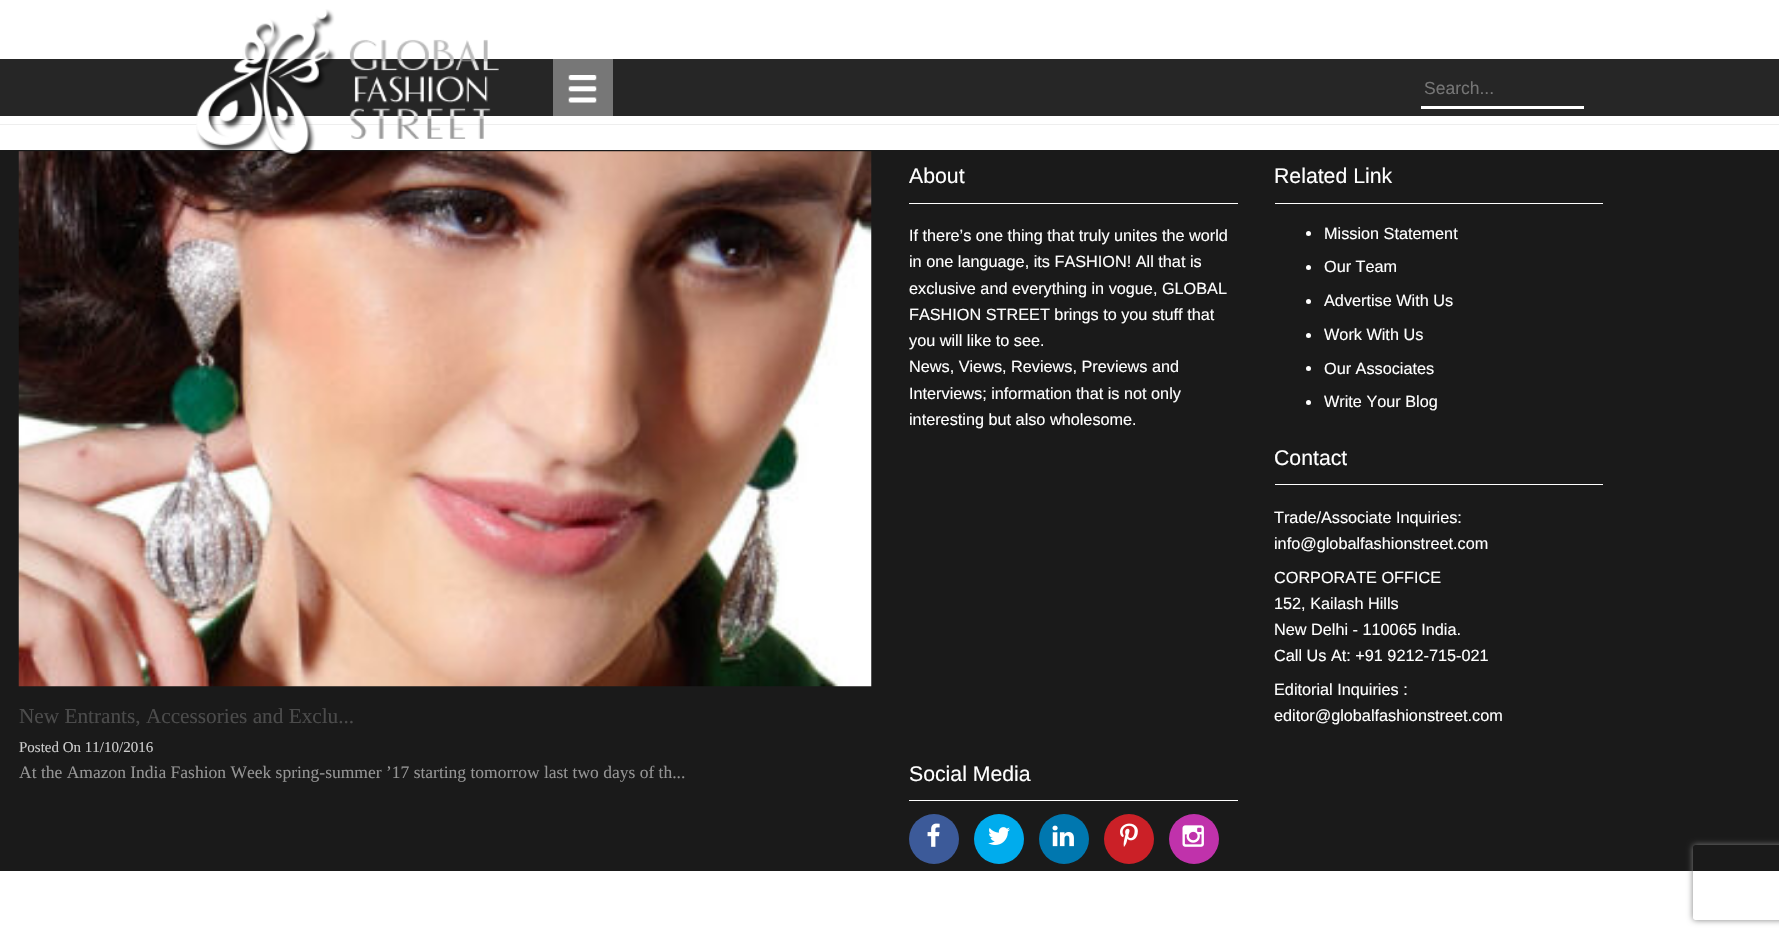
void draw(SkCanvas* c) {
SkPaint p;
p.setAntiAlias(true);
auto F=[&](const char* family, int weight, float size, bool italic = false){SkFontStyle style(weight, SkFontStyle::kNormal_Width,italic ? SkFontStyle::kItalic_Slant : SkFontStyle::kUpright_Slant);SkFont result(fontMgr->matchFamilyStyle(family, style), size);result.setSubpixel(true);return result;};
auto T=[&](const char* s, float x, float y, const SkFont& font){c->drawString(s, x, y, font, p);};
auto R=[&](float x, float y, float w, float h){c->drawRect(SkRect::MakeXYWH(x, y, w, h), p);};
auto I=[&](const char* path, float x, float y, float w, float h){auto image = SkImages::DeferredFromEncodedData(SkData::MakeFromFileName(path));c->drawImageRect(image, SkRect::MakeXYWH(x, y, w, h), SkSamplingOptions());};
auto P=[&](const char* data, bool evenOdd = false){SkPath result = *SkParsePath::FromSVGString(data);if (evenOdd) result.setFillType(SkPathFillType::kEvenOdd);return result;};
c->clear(0xffffffff);
p.setColor(0xd9000000);
R(0,59,1779,57);
p.setColor(0xffeeeeee);
R(0,124,1779,1);
p.setColor(0xff1a1a1a);
R(0,150,1779,721);
I("3.png",18,151,854,536);
I("1.png",196,9,303,151);
p.setColor(0xff777777);
R(553,59,60,57);
I("2.png",568,75,29,28);
p.setColor(0xffffffff);
R(1421,106,163,3);
auto f1 = F("Liberation Sans",400,17.5);
p.setColor(0xff757575);
T("Search...",1424,94,f1);
auto f2 = F("Liberation Serif",400,21.25);
p.setColor(0xff4b4b4b);
T("New Entrants, Accessories and Exclu...",19,723,f2);
auto f3 = F("Liberation Serif",400,15);
p.setColor(0xffcccccc);
T("Posted On 11/10/2016",19,752,f3);
auto f4 = F("Liberation Serif",400,17.5);
p.setColor(0xff949494);
T("At the Amazon India Fashion Week spring-summer ’17 starting tomorrow last two days of th...",19,778,f4);
p.setColor(0xffffffff);
R(909,203,329,1);
auto f5 = F("Liberation Sans",400,21.25);
T("About",909,183,f5);
auto f6 = F("Liberation Sans",400,16.25);
T("If there’s one thing that truly unites the world",909,241,f6);
T("in one language, its FASHION! All that is",909,267,f6);
T("exclusive and everything in vogue, GLOBAL",909,294,f6);
T("FASHION STREET brings to you stuff that",909,320,f6);
T("you will like to see.",909,346,f6);
T("News, Views, Reviews, Previews and",909,372,f6);
T("Interviews; information that is not only",909,399,f6);
T("interesting but also wholesome.",909,425,f6);
R(1275,203,328,1);
T("Related Link",1274,183,f5);
c->drawCircle(1308.5,233.5,2.5,p);
T("Mission Statement",1324,239,f6);
c->drawCircle(1308.5,267.5,2.5,p);
T("Our Team",1324,272,f6);
c->drawCircle(1308.5,301.5,2.5,p);
T("Advertise With Us",1324,306,f6);
c->drawCircle(1308.5,335.5,2.5,p);
T("Work With Us",1324,340,f6);
c->drawCircle(1308.5,368.5,2.5,p);
T("Our Associates",1324,374,f6);
c->drawCircle(1308.5,402.5,2.5,p);
T("Write Your Blog",1324,407,f6);
R(1275,484,328,1);
T("Contact",1274,465,f5);
T("Trade/Associate Inquiries:",1274,523,f6);
T("info@globalfashionstreet.com",1274,549,f6);
T("CORPORATE OFFICE",1274,583,f6);
T("152, Kailash Hills",1274,609,f6);
T("New Delhi - 110065 India.",1274,635,f6);
T("Call Us At: +91 9212-715-021",1274,661,f6);
T("Editorial Inquiries :",1274,695,f6);
T("editor@globalfashionstreet.com",1274,721,f6);
R(909,800,329,1);
T("Social Media",909,781,f5);
p.setColor(0xff3c5a99);
c->drawCircle(934,839,25,p);
I("4.png",927,823,13,24);
p.setColor(0xff00aced);
c->drawCircle(999,839,25,p);
I("5.png",988,827,22,18);
p.setColor(0xff0077af);
c->drawCircle(1064,839,25,p);
I("6.png",1052,825,22,22);
p.setColor(0xffcb2027);
c->drawCircle(1129,839,25,p);
I("7.png",1120,823,18,24);
p.setColor(0xffc032ab);
c->drawCircle(1194,839,25,p);
I("8.png",1182,825,22,22);
c->save();
c->clipPath(P("M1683 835h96v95h-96zm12.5 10h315c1.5 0 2.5 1 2.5 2.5v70c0 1.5-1 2.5-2.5 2.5h-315c-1.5 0-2.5-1-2.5-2.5v-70c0-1.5 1-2.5 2.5-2.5z",true),true);
p.setColor(0xff808080);
p.setMaskFilter(SkMaskFilter::MakeBlur(kNormal_SkBlurStyle, 3));
c->drawRoundRect(SkRect::MakeXYWH(1693,845,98,75),2.5,2.5,p);
p.setMaskFilter(nullptr);
c->restore();
}
